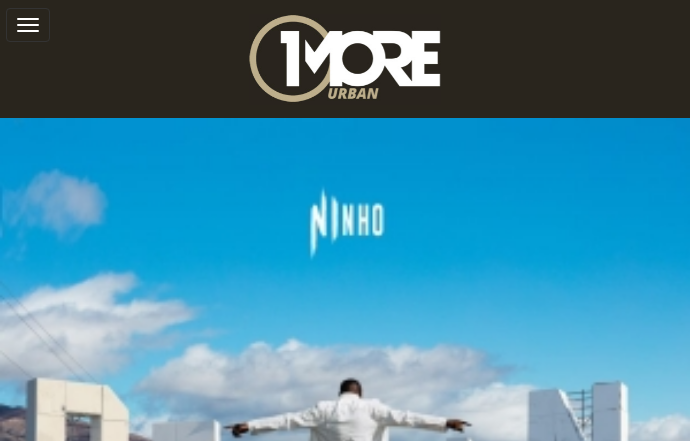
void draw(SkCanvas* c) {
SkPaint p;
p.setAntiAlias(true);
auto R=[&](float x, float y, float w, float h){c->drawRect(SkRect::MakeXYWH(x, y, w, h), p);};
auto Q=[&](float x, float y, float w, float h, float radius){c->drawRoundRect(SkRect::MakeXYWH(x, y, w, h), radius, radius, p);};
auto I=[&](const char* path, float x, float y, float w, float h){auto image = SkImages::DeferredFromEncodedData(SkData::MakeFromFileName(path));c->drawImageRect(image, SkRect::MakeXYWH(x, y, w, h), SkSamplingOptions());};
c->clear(0xffffffff);
p.setColor(0xff29251d);
R(0,0,690,118);
p.setStroke(true);
p.setStrokeWidth(1);
p.setColor(0xff333333);
c->drawRoundRect(SkRect::MakeXYWH(6.5,8.5,43,33),3.5,3.5,p);
p.setStroke(false);
p.setColor(0xffffffff);
Q(17,18,22,2,1);
Q(17,24,22,2,1);
Q(17,30,22,2,1);
I("1.png",249,14,192,91);
I("2.png",0,118,690,323);
}
